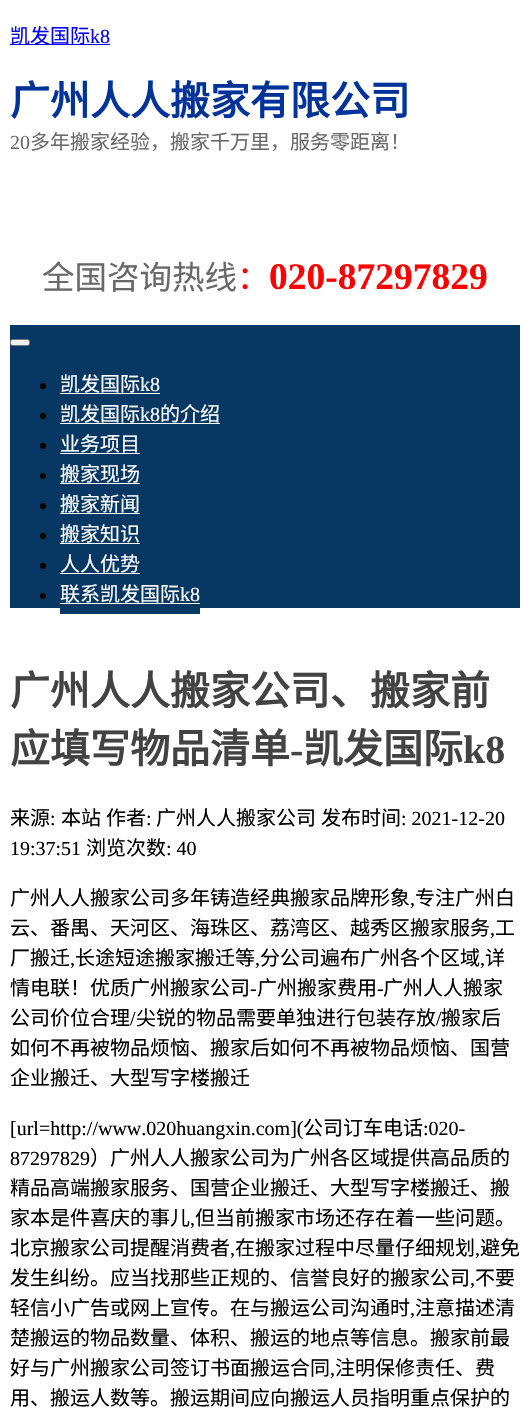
void draw(SkCanvas* c) {
SkPaint p;
p.setAntiAlias(true);
auto F=[&](const char* family, int weight, float size, bool italic = false){SkFontStyle style(weight, SkFontStyle::kNormal_Width,italic ? SkFontStyle::kItalic_Slant : SkFontStyle::kUpright_Slant);SkFont result(fontMgr->matchFamilyStyle(family, style), size);result.setSubpixel(true);return result;};
auto T=[&](const char* s, float x, float y, const SkFont& font){c->drawString(s, x, y, font, p);};
auto R=[&](float x, float y, float w, float h){c->drawRect(SkRect::MakeXYWH(x, y, w, h), p);};
c->clear(0xffffffff);
p.setColor(0xff0000ee);
R(10,44,100,1);
auto f1 = F("Noto Sans CJK SC",400,20);
T("凯发国际",10,43,f1);
auto f2 = F("Liberation Serif",400,20);
T("k8",90,43,f2);
auto f3 = F("Noto Sans CJK SC",700,40);
p.setColor(0xff003399);
T("广州人人搬家有限公司",10,115,f3);
p.setColor(0xff696969);
T("20",10,149,f2);
T("多年搬家经验，搬家千万里，服务零距离！",30,149,f1);
auto f4 = F("Noto Sans CJK SC",400,32.5);
T("全国咨询热线",42,289,f4);
p.setColor(0xffff0000);
T("：",237,289,f4);
auto f5 = F("Liberation Serif",700,37.5);
T("020-87297829",269,289,f5);
p.setColor(0xff073763);
R(10,325,510,283);
p.setColor(0xffefefef);
c->drawRoundRect(SkRect::MakeXYWH(10.5,339.5,19,6),2,2,p);
p.setStroke(true);
p.setStrokeWidth(1);
p.setColor(0xff767676);
c->drawRoundRect(SkRect::MakeXYWH(10.5,339.5,19,6),2,2,p);
p.setStroke(false);
p.setColor(0xff000000);
c->drawCircle(43,386,3,p);
p.setColor(0xffffffff);
T("凯发国际",60,391,f1);
T("k8",140,391,f2);
R(60,393,100,1);
p.setColor(0xff000000);
c->drawCircle(43,416,3,p);
p.setColor(0xffffffff);
T("凯发国际",60,421,f1);
T("k8",140,421,f2);
R(60,423,160,1);
T("的介绍",160,421,f1);
p.setColor(0xff000000);
c->drawCircle(43,446,3,p);
p.setColor(0xffffffff);
T("业务项目",60,451,f1);
R(60,453,80,1);
p.setColor(0xff000000);
c->drawCircle(43,476,3,p);
p.setColor(0xffffffff);
T("搬家现场",60,481,f1);
R(60,483,80,1);
p.setColor(0xff000000);
c->drawCircle(43,506,3,p);
p.setColor(0xffffffff);
T("搬家新闻",60,511,f1);
R(60,513,80,1);
p.setColor(0xff000000);
c->drawCircle(43,536,3,p);
p.setColor(0xffffffff);
T("搬家知识",60,541,f1);
R(60,543,80,1);
p.setColor(0xff000000);
c->drawCircle(43,566,3,p);
p.setColor(0xffffffff);
T("人人优势",60,571,f1);
R(60,573,80,1);
p.setColor(0xff000000);
c->drawCircle(43,596,3,p);
p.setColor(0xffffffff);
T("联系凯发国际",60,601,f1);
T("k8",180,601,f2);
p.setColor(0xff073763);
R(60,608,140,6);
p.setColor(0xffffffff);
R(60,603,140,1);
p.setColor(0xff434343);
T("广州人人搬家公司、搬家前",10,705,f3);
T("应填写物品清单",10,763,f3);
auto f6 = F("Liberation Serif",700,40);
T("-",290,763,f6);
T("凯发国际",303,763,f3);
T("k8",463,763,f6);
p.setColor(0xff000000);
T("来源",10,825,f1);
T(":",50,825,f2);
T("本站",61,825,f1);
T("作者",106,825,f1);
T(":",146,825,f2);
T("广州人人搬家公司",156,825,f1);
T("发布时间",321,825,f1);
T(": 2021-12-20",401,825,f2);
T("19:37:51",10,855,f2);
T("浏览次数",86,855,f1);
T(": 40",166,855,f2);
T("广州人人搬家公司多年铸造经典搬家品牌形象",10,905,f1);
T(",",410,905,f2);
T("专注广州白",415,905,f1);
T("云、番禺、天河区、海珠区、荔湾区、越秀区搬家服务",10,935,f1);
T(",",490,935,f2);
T("工",495,935,f1);
T("厂搬迁",10,965,f1);
T(",",70,965,f2);
T("长途短途搬家搬迁等",75,965,f1);
T(",",255,965,f2);
T("分公司遍布广州各个区域",260,965,f1);
T(",",480,965,f2);
T("详",485,965,f1);
T("情电联！优质广州搬家公司",10,995,f1);
T("-",250,995,f2);
T("广州搬家费用",257,995,f1);
T("-",377,995,f2);
T("广州人人搬家",383,995,f1);
T("公司价位合理",10,1025,f1);
T("/",130,1025,f2);
T("尖锐的物品需要单独进行包装存放",136,1025,f1);
T("/",436,1025,f2);
T("搬家后",441,1025,f1);
T("如何不再被物品烦恼、搬家后如何不再被物品烦恼、国营",10,1055,f1);
T("企业搬迁、大型写字楼搬迁",10,1085,f1);
T("[url=http://www.020huangxin.com](",10,1135,f2);
T("公司订车电话",303,1135,f1);
T(":020-",423,1135,f2);
T("87297829",10,1165,f2);
T("）广州人人搬家公司为广州各区域提供高品质的",90,1165,f1);
T("精品高端搬家服务、国营企业搬迁、大型写字楼搬迁、搬",10,1195,f1);
T("家本是件喜庆的事儿",10,1225,f1);
T(",",190,1225,f2);
T("但当前搬家市场还存在着一些问题。",195,1225,f1);
T("北京搬家公司提醒消费者",10,1255,f1);
T(",",230,1255,f2);
T("在搬家过程中尽量仔细规划",235,1255,f1);
T(",",475,1255,f2);
T("避免",480,1255,f1);
T("发生纠纷。应当找那些正规的、信誉良好的搬家公司",10,1285,f1);
T(",",470,1285,f2);
T("不要",475,1285,f1);
T("轻信小广告或网上宣传。在与搬运公司沟通时",10,1315,f1);
T(",",410,1315,f2);
T("注意描述清",415,1315,f1);
T("楚搬运的物品数量、体积、搬运的地点等信息。搬家前最",10,1345,f1);
T("好与广州搬家公司签订书面搬运合同",10,1375,f1);
T(",",330,1375,f2);
T("注明保修责任、费",335,1375,f1);
T("用、搬运人数等。搬运期间应向搬运人员指明重点保护的",10,1405,f1);
}
